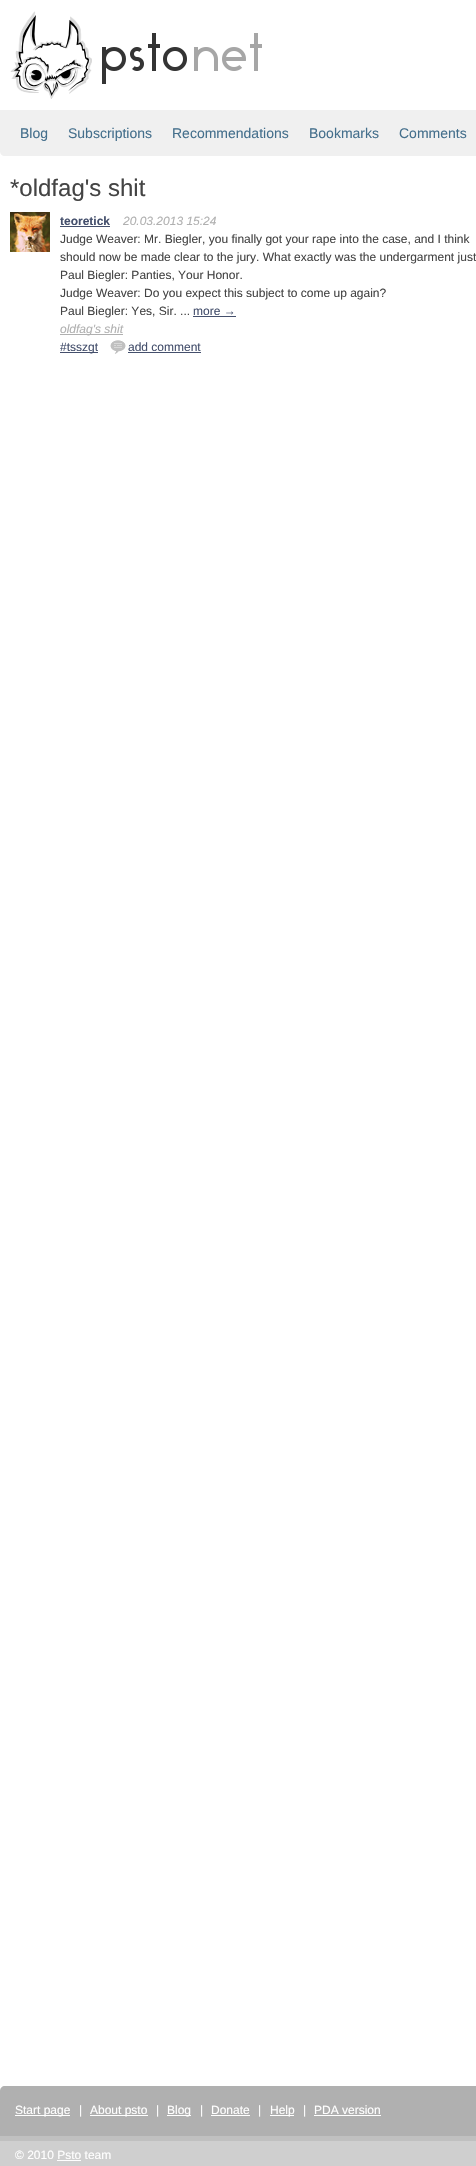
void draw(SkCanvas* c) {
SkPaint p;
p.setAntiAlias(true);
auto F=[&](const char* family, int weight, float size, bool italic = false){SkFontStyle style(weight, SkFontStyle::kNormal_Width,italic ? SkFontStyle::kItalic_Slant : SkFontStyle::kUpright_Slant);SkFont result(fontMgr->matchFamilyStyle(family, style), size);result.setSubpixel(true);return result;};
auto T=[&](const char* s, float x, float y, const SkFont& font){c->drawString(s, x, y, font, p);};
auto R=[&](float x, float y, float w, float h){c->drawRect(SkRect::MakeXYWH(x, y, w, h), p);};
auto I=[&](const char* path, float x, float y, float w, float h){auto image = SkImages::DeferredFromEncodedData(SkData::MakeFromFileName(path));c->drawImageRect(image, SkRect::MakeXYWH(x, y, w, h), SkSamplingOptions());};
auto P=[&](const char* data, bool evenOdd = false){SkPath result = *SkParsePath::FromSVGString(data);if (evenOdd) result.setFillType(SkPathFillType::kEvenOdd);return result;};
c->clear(0xffffffff);
I("1.png",10,11,252,88);
p.setColor(0xfff0f0f0);
c->drawPath(P("M0 110h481v41c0 3-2 5-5 5h-471c-3 0-5-2-5-5z"),p);
auto f1 = F("Liberation Sans",400,14);
p.setColor(0xff446f8c);
T("Blog",20,138,f1);
T("Subscriptions",68,138,f1);
T("Recommendations",172,138,f1);
T("Bookmarks",309,138,f1);
T("Comments",399,138,f1);
auto f2 = F("Liberation Sans",400,24);
p.setColor(0xff444444);
T("*oldfag's shit",10,196,f2);
I("2.png",10,212,40,40);
auto f3 = F("Liberation Sans",700,12);
p.setColor(0xff444f6c);
T("teoretick",60,225,f3);
R(60,226,50,1);
auto f4 = F("Liberation Sans",400,12,true);
p.setColor(0xffb0b0b0);
T("20.03.2013 15:24",123,225,f4);
auto f5 = F("Liberation Sans",400,12);
p.setColor(0xff444444);
T("Judge Weaver: Mr. Biegler, you finally got your rape into the case, and I think",60,243,f5);
T("should now be made clear to the jury. What exactly was the undergarment just",60,261,f5);
T("Paul Biegler: Panties, Your Honor.",60,279,f5);
T("Judge Weaver: Do you expect this subject to come up again?",60,297,f5);
T("Paul Biegler: Yes, Sir. ...",60,315,f5);
p.setColor(0xff444f6c);
T("more →",193,315,f5);
R(193,316,43,1);
p.setColor(0xffb0b0b0);
R(60,334,63,1);
T("oldfag's shit",60,333,f4);
p.setColor(0xff444f6c);
R(60,352,38,1);
T("#tsszgt",60,351,f5);
I("3.png",110,340,16,14);
T("add comment",128,351,f5);
R(128,352,73,1);
p.setColor(0xffb0b0b0);
c->drawPath(P("M5 2086h471c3 0 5 2 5 5v45h-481v-45c0-3 2-5 5-5z"),p);
p.setColor(0xffffffff);
R(15,2115,55,1);
T("Start page",15,2114,f5);
T("|",79,2114,f5);
R(90,2115,58,1);
T("About psto",90,2114,f5);
T("|",156,2114,f5);
R(167,2115,24,1);
T("Blog",167,2114,f5);
T("|",200,2114,f5);
T("Donate",211,2114,f5);
R(211,2115,39,1);
T("|",258,2114,f5);
R(270,2115,24,1);
T("Help",270,2114,f5);
T("|",303,2114,f5);
T("PDA version",314,2114,f5);
R(314,2115,67,1);
p.setColor(0xffcfcfcf);
R(0,2141,476,25);
p.setColor(0xffc0c0c0);
R(0,2136,476,5);
p.setColor(0xffffffff);
T("© 2010 Psto team",15,2159,f5);
R(57,2160,24,1);
}
